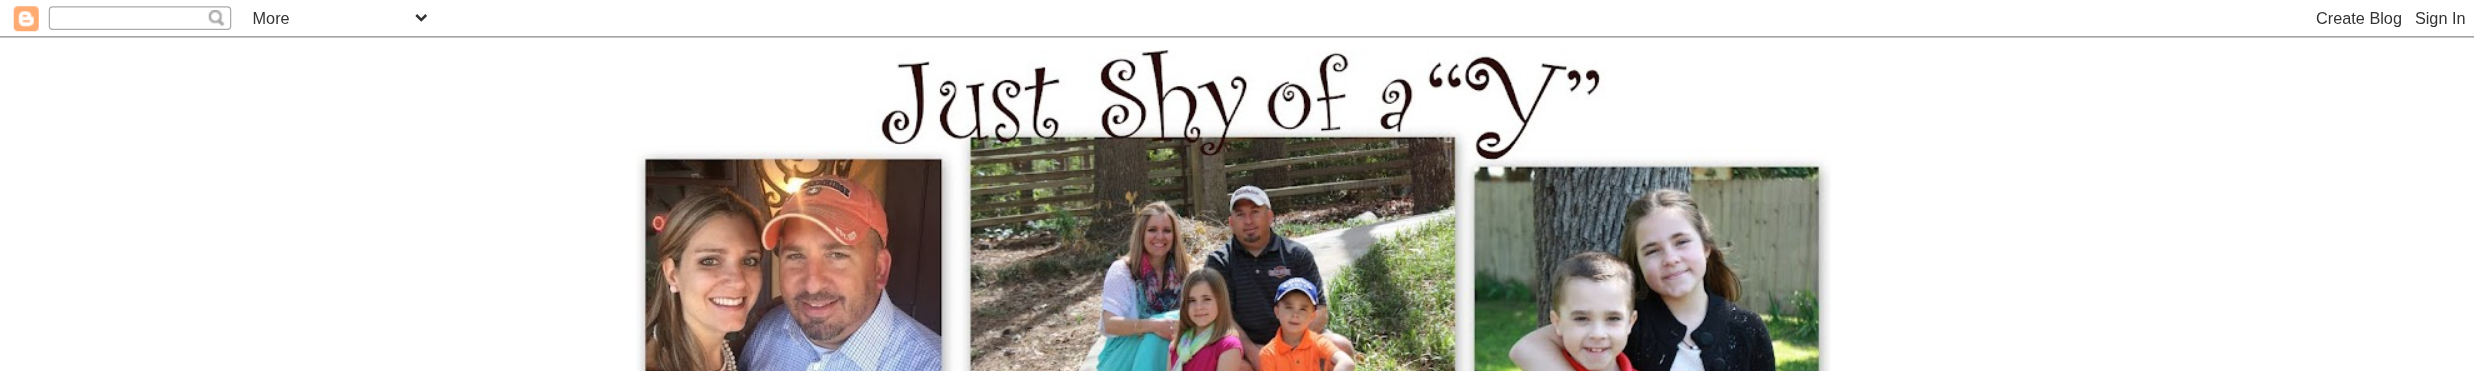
void draw(SkCanvas* c) {
SkPaint p;
p.setAntiAlias(true);
auto I=[&](const char* path, float x, float y, float w, float h){auto image = SkImages::DeferredFromEncodedData(SkData::MakeFromFileName(path));c->drawImageRect(image, SkRect::MakeXYWH(x, y, w, h), SkSamplingOptions());};
c->clear(0xffffffff);
I("1.png",0,6,2474,32);
I("2.png",636,50,1195,321);
}
